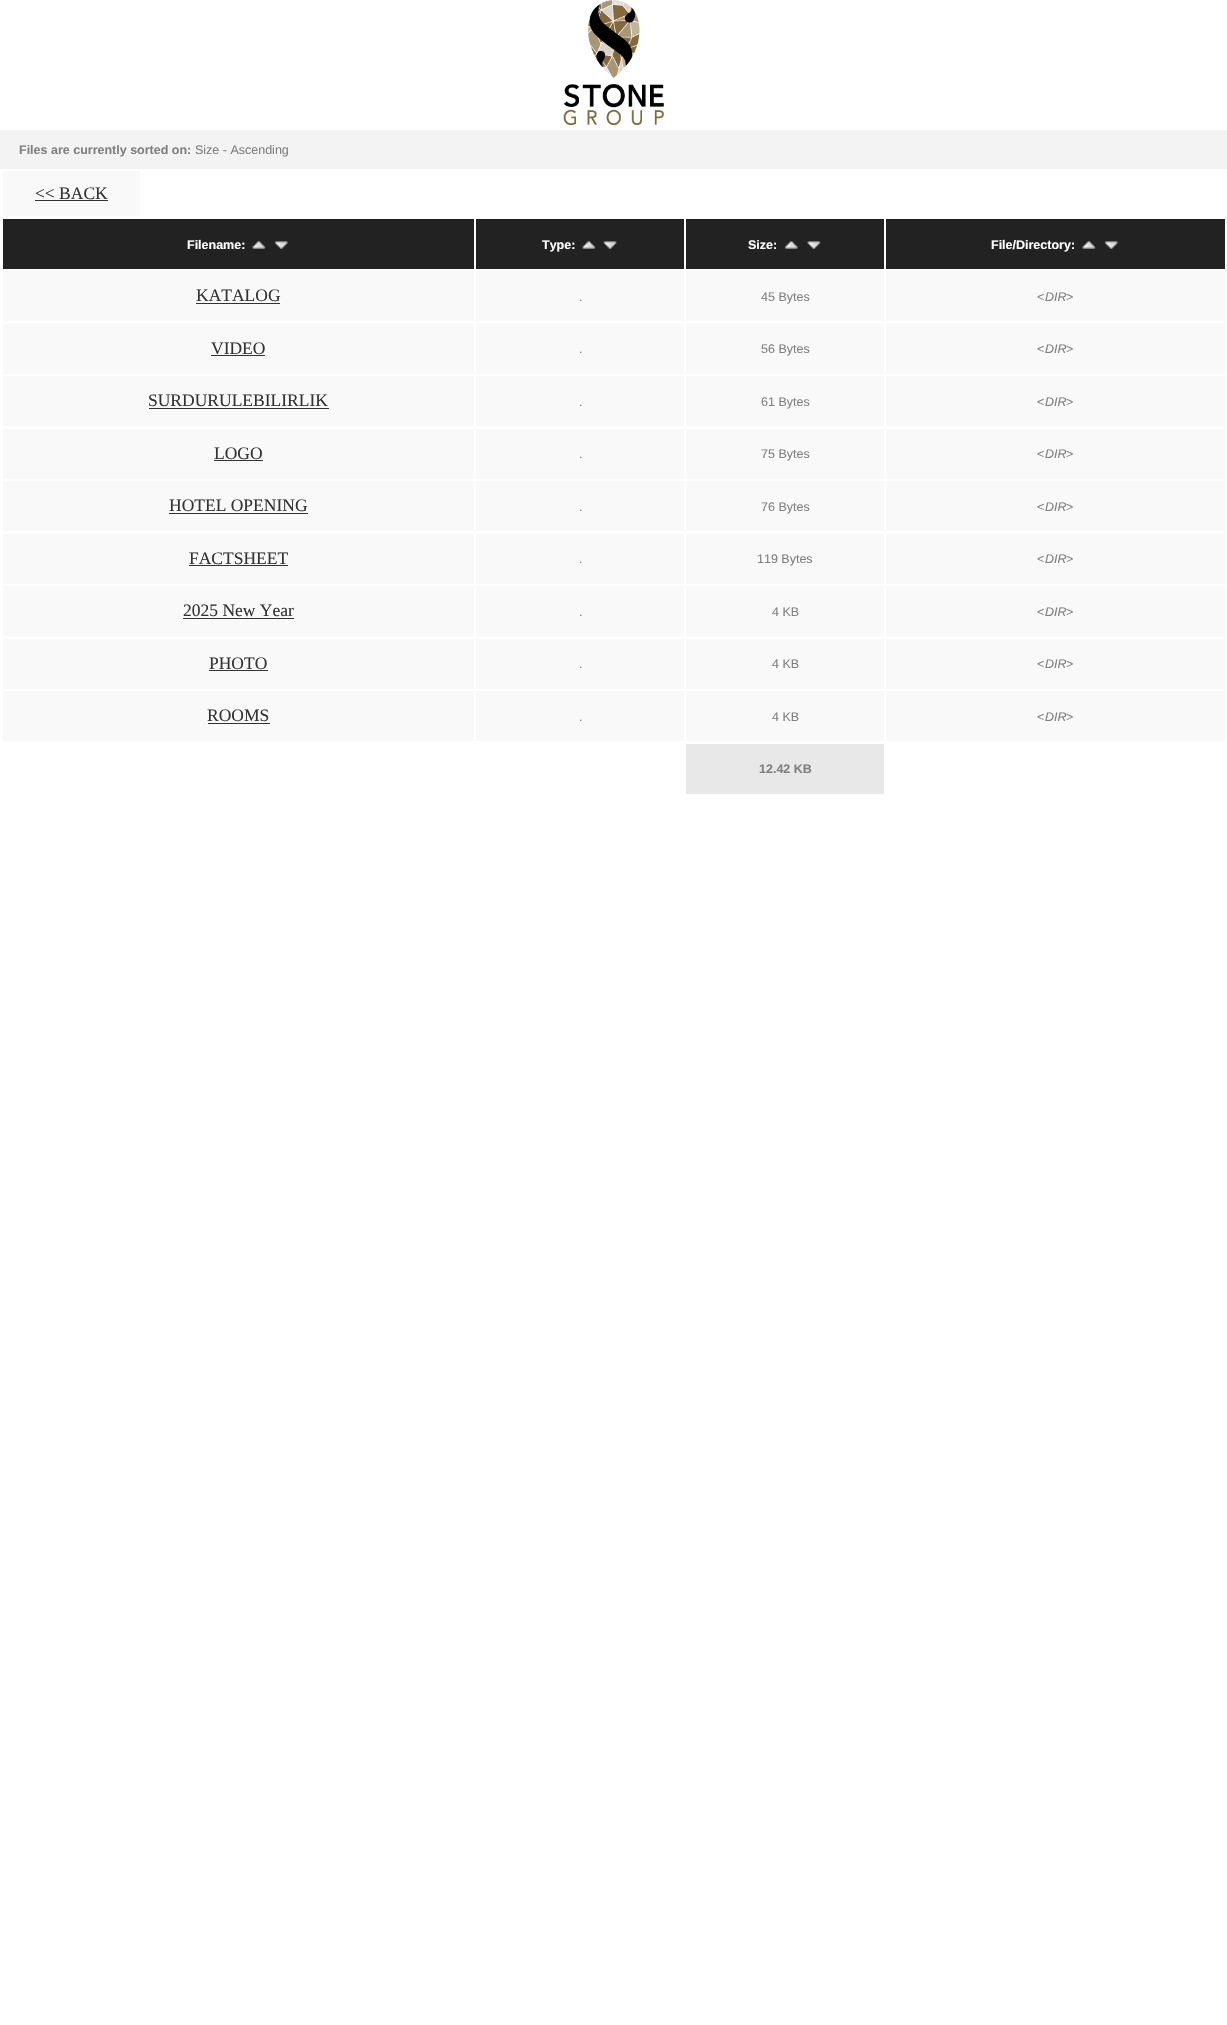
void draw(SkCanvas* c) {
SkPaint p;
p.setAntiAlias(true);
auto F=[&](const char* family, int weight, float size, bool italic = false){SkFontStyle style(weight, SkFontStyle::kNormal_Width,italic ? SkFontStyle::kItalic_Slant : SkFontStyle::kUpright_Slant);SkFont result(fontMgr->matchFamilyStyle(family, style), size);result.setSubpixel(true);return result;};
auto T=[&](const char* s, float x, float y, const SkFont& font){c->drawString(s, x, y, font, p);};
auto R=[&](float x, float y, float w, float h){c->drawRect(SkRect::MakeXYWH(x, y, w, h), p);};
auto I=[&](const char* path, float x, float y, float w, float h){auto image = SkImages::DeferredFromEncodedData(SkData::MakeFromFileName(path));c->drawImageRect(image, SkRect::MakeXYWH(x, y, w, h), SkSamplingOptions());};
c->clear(0xffffffff);
I("1.png",563,0,101,125);
p.setColor(0xfff3f3f3);
R(0,130,1227,39);
auto f1 = F("Liberation Sans",700,12.5);
p.setColor(0xff808080);
T("Files are currently sorted on:",19,154,f1);
auto f2 = F("Liberation Sans",400,12.5);
T("Size - Ascending",195,154,f2);
p.setColor(0xfff9f9f9);
R(3,171,137,45);
auto f3 = F("Liberation Serif",400,17.5);
p.setColor(0xff333333);
T("<< BACK",35,199,f3);
R(35,200,73,1);
p.setColor(0xff222222);
R(3,219,471,50);
p.setColor(0xffffffff);
T("Filename:",187,249,f1);
I("2.png",252,241,14,8);
I("3.png",274,241,14,8);
p.setColor(0xff222222);
R(476,219,208,50);
p.setColor(0xffffffff);
T("Type:",542,249,f1);
I("4.png",582,241,14,8);
I("5.png",603,241,14,8);
p.setColor(0xff222222);
R(686,219,198,50);
p.setColor(0xffffffff);
T("Size:",748,249,f1);
I("6.png",784,241,14,8);
I("7.png",807,241,14,8);
p.setColor(0xff222222);
R(886,219,339,50);
p.setColor(0xffffffff);
T("File/Directory:",991,249,f1);
I("4.png",1082,241,14,8);
I("3.png",1104,241,14,8);
p.setColor(0xfff9f9f9);
R(3,271,471,50);
p.setColor(0xff333333);
T("KATALOG",196,301,f3);
R(196,303,84,1);
p.setColor(0xfff9f9f9);
R(476,271,208,50);
p.setColor(0xff808080);
T(".",579,301,f2);
p.setColor(0xfff9f9f9);
R(686,271,198,50);
p.setColor(0xff808080);
T("45 Bytes",761,301,f2);
p.setColor(0xfff9f9f9);
R(886,271,339,50);
p.setColor(0xff808080);
T("<",1037,301,f2);
auto f4 = F("Liberation Sans",400,12.5,true);
T("DIR",1045,301,f4);
T(">",1066,301,f2);
p.setColor(0xfff9f9f9);
R(3,324,471,50);
p.setColor(0xff333333);
T("VIDEO",211,354,f3);
R(211,355,54,1);
p.setColor(0xfff9f9f9);
R(476,324,208,50);
p.setColor(0xff808080);
T(".",579,353,f2);
p.setColor(0xfff9f9f9);
R(686,324,198,50);
p.setColor(0xff808080);
T("56 Bytes",761,353,f2);
p.setColor(0xfff9f9f9);
R(886,324,339,50);
p.setColor(0xff808080);
T("<",1037,353,f2);
T("DIR",1045,353,f4);
T(">",1066,353,f2);
p.setColor(0xfff9f9f9);
R(3,376,471,50);
p.setColor(0xff333333);
T("SURDURULEBILIRLIK",148,406,f3);
R(149,408,180,1);
p.setColor(0xfff9f9f9);
R(476,376,208,50);
p.setColor(0xff808080);
T(".",579,406,f2);
p.setColor(0xfff9f9f9);
R(686,376,198,50);
p.setColor(0xff808080);
T("61 Bytes",761,406,f2);
p.setColor(0xfff9f9f9);
R(886,376,339,50);
p.setColor(0xff808080);
T("<",1037,406,f2);
T("DIR",1045,406,f4);
T(">",1066,406,f2);
p.setColor(0xfff9f9f9);
R(3,429,471,50);
p.setColor(0xff333333);
T("LOGO",214,459,f3);
R(214,460,49,1);
p.setColor(0xfff9f9f9);
R(476,429,208,50);
p.setColor(0xff808080);
T(".",579,458,f2);
p.setColor(0xfff9f9f9);
R(686,429,198,50);
p.setColor(0xff808080);
T("75 Bytes",761,458,f2);
p.setColor(0xfff9f9f9);
R(886,429,339,50);
p.setColor(0xff808080);
T("<",1037,458,f2);
T("DIR",1045,458,f4);
T(">",1066,458,f2);
p.setColor(0xfff9f9f9);
R(3,481,471,50);
p.setColor(0xff333333);
T("HOTEL OPENING",169,511,f3);
R(169,513,139,1);
p.setColor(0xfff9f9f9);
R(476,481,208,50);
p.setColor(0xff808080);
T(".",579,511,f2);
p.setColor(0xfff9f9f9);
R(686,481,198,50);
p.setColor(0xff808080);
T("76 Bytes",761,511,f2);
p.setColor(0xfff9f9f9);
R(886,481,339,50);
p.setColor(0xff808080);
T("<",1037,511,f2);
T("DIR",1045,511,f4);
T(">",1066,511,f2);
p.setColor(0xfff9f9f9);
R(3,534,471,50);
p.setColor(0xff333333);
T("FACTSHEET",189,564,f3);
R(189,565,99,1);
p.setColor(0xfff9f9f9);
R(476,534,208,50);
p.setColor(0xff808080);
T(".",579,563,f2);
p.setColor(0xfff9f9f9);
R(686,534,198,50);
p.setColor(0xff808080);
T("119 Bytes",757,563,f2);
p.setColor(0xfff9f9f9);
R(886,534,339,50);
p.setColor(0xff808080);
T("<",1037,563,f2);
T("DIR",1045,563,f4);
T(">",1066,563,f2);
p.setColor(0xfff9f9f9);
R(3,586,471,50);
p.setColor(0xff333333);
T("2025 New Year",183,616,f3);
R(183,618,111,1);
p.setColor(0xfff9f9f9);
R(476,586,208,50);
p.setColor(0xff808080);
T(".",579,616,f2);
p.setColor(0xfff9f9f9);
R(686,586,198,50);
p.setColor(0xff808080);
T("4 KB",772,616,f2);
p.setColor(0xfff9f9f9);
R(886,586,339,50);
p.setColor(0xff808080);
T("<",1037,616,f2);
T("DIR",1045,616,f4);
T(">",1066,616,f2);
p.setColor(0xfff9f9f9);
R(3,639,471,50);
p.setColor(0xff333333);
T("PHOTO",209,669,f3);
R(209,670,59,1);
p.setColor(0xfff9f9f9);
R(476,639,208,50);
p.setColor(0xff808080);
T(".",579,668,f2);
p.setColor(0xfff9f9f9);
R(686,639,198,50);
p.setColor(0xff808080);
T("4 KB",772,668,f2);
p.setColor(0xfff9f9f9);
R(886,639,339,50);
p.setColor(0xff808080);
T("<",1037,668,f2);
T("DIR",1045,668,f4);
T(">",1066,668,f2);
p.setColor(0xfff9f9f9);
R(3,691,471,50);
p.setColor(0xff333333);
T("ROOMS",207,721,f3);
R(208,723,62,1);
p.setColor(0xfff9f9f9);
R(476,691,208,50);
p.setColor(0xff808080);
T(".",579,721,f2);
p.setColor(0xfff9f9f9);
R(686,691,198,50);
p.setColor(0xff808080);
T("4 KB",772,721,f2);
p.setColor(0xfff9f9f9);
R(886,691,339,50);
p.setColor(0xff808080);
T("<",1037,721,f2);
T("DIR",1045,721,f4);
T(">",1066,721,f2);
p.setColor(0xffe8e8e8);
R(686,744,198,50);
p.setColor(0xff808080);
T("12.42 KB",759,773,f1);
}
